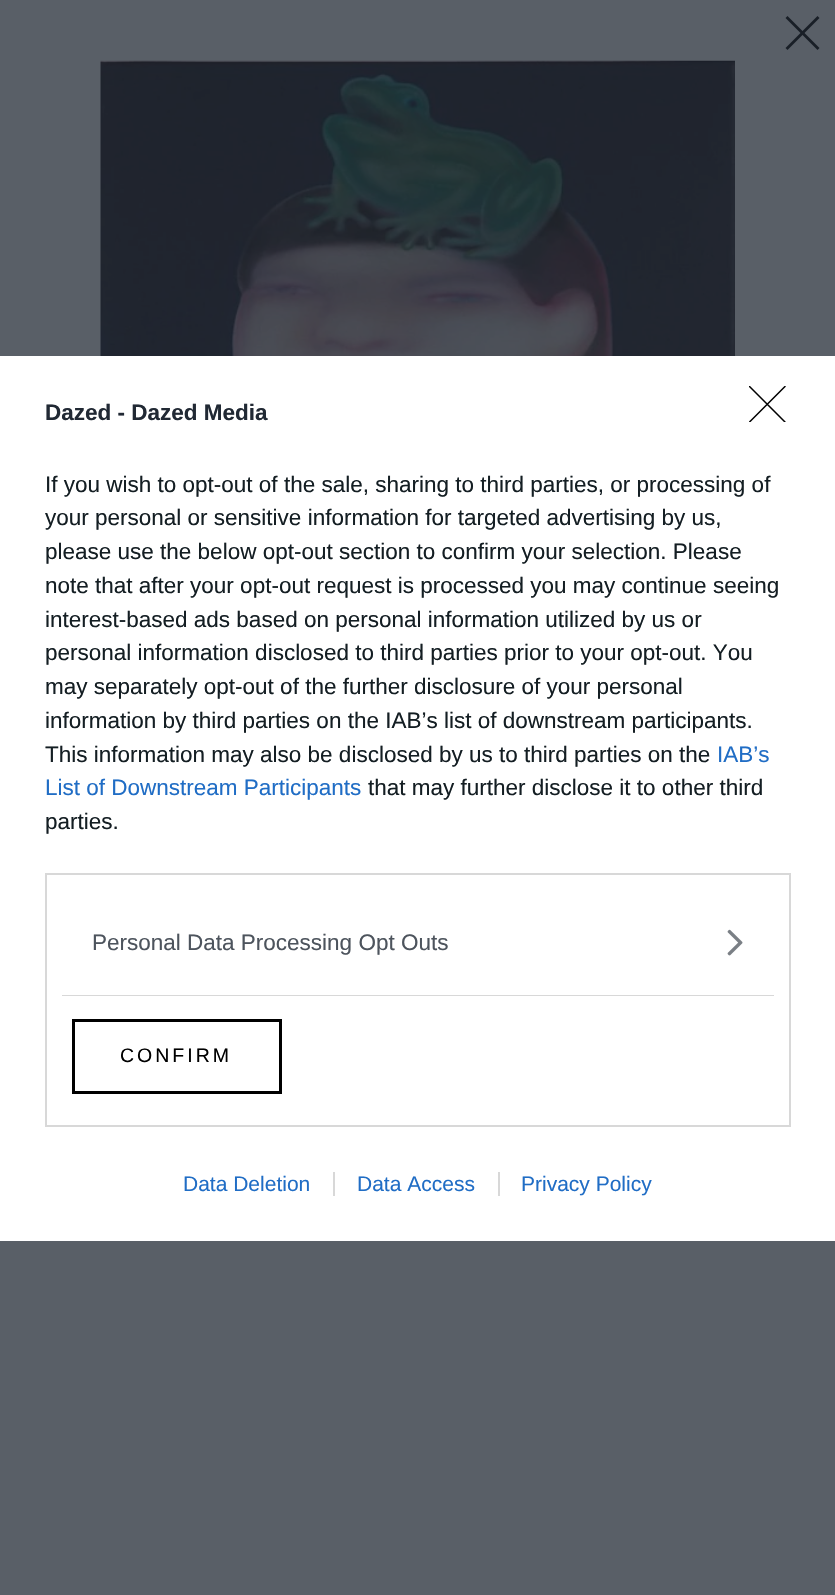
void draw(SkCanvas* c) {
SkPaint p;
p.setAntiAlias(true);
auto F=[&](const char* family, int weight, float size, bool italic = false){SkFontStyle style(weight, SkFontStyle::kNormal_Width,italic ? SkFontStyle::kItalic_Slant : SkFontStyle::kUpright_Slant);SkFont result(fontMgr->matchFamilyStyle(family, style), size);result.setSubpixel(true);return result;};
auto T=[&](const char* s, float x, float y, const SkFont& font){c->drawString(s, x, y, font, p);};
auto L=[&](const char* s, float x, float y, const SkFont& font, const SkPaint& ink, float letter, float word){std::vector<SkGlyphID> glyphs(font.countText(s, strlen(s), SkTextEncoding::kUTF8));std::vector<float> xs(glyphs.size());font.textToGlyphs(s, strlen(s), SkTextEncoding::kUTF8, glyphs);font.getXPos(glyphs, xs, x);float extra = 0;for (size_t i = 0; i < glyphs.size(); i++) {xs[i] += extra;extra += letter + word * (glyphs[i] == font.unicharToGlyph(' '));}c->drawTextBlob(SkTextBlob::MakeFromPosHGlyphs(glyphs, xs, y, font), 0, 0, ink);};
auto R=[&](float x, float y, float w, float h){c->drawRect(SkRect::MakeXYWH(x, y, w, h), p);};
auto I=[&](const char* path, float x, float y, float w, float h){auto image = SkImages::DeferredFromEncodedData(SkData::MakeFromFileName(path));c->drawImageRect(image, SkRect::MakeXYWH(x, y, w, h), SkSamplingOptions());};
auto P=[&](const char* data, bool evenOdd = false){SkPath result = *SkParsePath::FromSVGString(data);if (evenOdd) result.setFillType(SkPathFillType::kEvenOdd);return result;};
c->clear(0xff595f67);
p.setColor(0xff191f27);
c->drawPath(P("M817.5 16l2 2l-32 32l-2-2z",true),p);
c->drawPath(P("M819.5 48l-2 2l-32-32l2-2z",true),p);
I("1.png",100,60,635,296);
p.setColor(0xffffffff);
R(0,356,835,885);
c->save();
c->clipRect(SkRect::MakeXYWH(749,386,37,36));
p.setStroke(true);
p.setStrokeWidth(1.5);
p.setStrokeCap(SkPaint::kRound_Cap);
p.setStrokeJoin(SkPaint::kRound_Join);
p.setColor(0xff000000);
c->drawPath(P("M749.5 386.5l35.5 35.5m0-35.5l-35.5 35.5"),p);
c->restore();
auto f1 = F("Liberation Sans",700,22.5);
p.setStroke(false);
p.setColor(0xff212934);
T("Dazed - Dazed Media",45,420,f1);
auto f2 = F("Liberation Sans",400,22.5);
p.setColor(0xff141e23);
T("If you wish to opt-out of the sale, sharing to third parties, or processing of",45,492,f2);
T("your personal or sensitive information for targeted advertising by us,",45,525,f2);
T("please use the below opt-out section to confirm your selection. Please",45,559,f2);
T("note that after your opt-out request is processed you may continue seeing",45,593,f2);
T("interest-based ads based on personal information utilized by us or",45,627,f2);
T("personal information disclosed to third parties prior to your opt-out. You",45,660,f2);
T("may separately opt-out of the further disclosure of your personal",45,694,f2);
T("information by third parties on the IAB’s list of downstream participants.",45,728,f2);
T("This information may also be disclosed by us to third parties on the",45,762,f2);
p.setColor(0xff206dc5);
T("IAB’s",717,762,f2);
T("List of Downstream Participants",45,795,f2);
p.setColor(0xff141e23);
T("that may further disclose it to other third",368,795,f2);
T("parties.",45,829,f2);
p.setStroke(true);
p.setStrokeWidth(2);
p.setStrokeCap(SkPaint::kButt_Cap);
p.setStrokeJoin(SkPaint::kMiter_Join);
p.setColor(0xffd8d8d8);
c->drawRect(SkRect::MakeXYWH(46,874,744,252),p);
p.setStroke(false);
R(62,995,712,1);
p.setColor(0xff4d545d);
T("Personal Data Processing Opt Outs",92,950,f2);
I("2.png",727,929,16,27);
p.setStroke(true);
p.setStrokeWidth(3);
p.setColor(0xff000000);
c->drawRect(SkRect::MakeXYWH(73.5,1020.5,207,72),p);
auto f3 = F("Liberation Sans",400,19.5);
p.setStroke(false);
L("CONFIRM",120,1062,f3,p,3,0);
auto f4 = F("Liberation Sans",400,21);
p.setColor(0xff206dc5);
T("Data Deletion",183,1191,f4);
T("Data Access",357,1191,f4);
p.setColor(0xffd8d8d8);
R(333,1172,2,24);
p.setColor(0xff206dc5);
T("Privacy Policy",521,1191,f4);
p.setColor(0xffd8d8d8);
R(498,1172,2,24);
}
